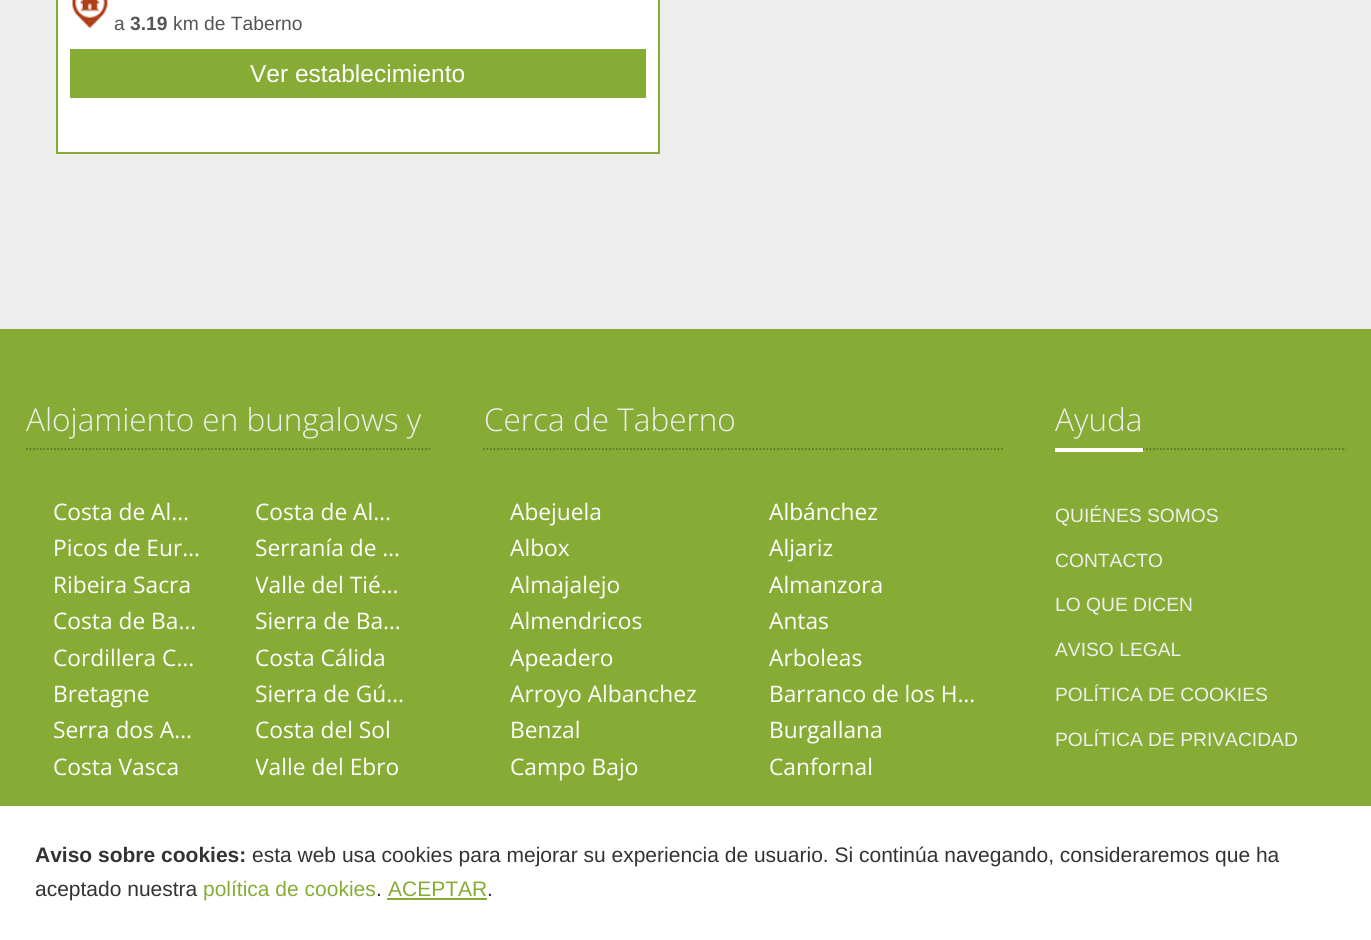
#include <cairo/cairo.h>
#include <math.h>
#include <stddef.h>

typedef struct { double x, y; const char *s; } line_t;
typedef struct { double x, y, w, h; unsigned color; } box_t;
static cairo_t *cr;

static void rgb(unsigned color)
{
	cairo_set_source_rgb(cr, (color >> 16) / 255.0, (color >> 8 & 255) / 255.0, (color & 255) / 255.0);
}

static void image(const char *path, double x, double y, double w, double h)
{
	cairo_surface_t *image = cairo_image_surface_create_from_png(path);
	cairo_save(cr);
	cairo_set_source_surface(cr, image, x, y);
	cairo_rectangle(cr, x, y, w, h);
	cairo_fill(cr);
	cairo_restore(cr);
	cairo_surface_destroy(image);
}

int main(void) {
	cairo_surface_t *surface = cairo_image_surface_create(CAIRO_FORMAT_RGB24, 1371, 940);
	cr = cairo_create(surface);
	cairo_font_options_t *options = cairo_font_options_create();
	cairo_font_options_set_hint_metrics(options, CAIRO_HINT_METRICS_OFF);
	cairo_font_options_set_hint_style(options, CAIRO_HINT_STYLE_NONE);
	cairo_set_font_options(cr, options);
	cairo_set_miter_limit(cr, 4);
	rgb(0xeeeeee);
	cairo_paint(cr);
	rgb(0xffffff);
	cairo_rectangle(cr, 57, -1, 602, 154);
	cairo_fill_preserve(cr);
	rgb(0x87ac35);
	cairo_stroke(cr);
	image("img/1.png", 71, 0, 38, 29);
	cairo_rectangle(cr, 70, 49, 576, 49);
	cairo_fill(cr);
	cairo_rectangle(cr, 0, 329, 1371, 473);
	cairo_fill(cr);
	cairo_new_path(cr);
	cairo_move_to(cr, 26, 449);
	cairo_line_to(cr, 430.5, 449);
	rgb(0x5f7826);
	cairo_set_line_width(cr, 1.8);
	cairo_set_dash(cr, (double[]){1.75, 1.75}, 2, 0);
	cairo_stroke(cr);
	cairo_new_path(cr);
	cairo_move_to(cr, 483, 449);
	cairo_line_to(cr, 1003, 449);
	cairo_stroke(cr);
	cairo_new_path(cr);
	cairo_move_to(cr, 1055, 449);
	cairo_line_to(cr, 1346, 449);
	cairo_stroke(cr);
	{
		static const box_t items[] = {
			{1055, 448, 88, 4, 0xffffff},
			{0, 806, 1371, 134, 0xffffff},
			{0, 802, 1371, 4, 0x87ac33},
			{387, 898, 100, 2, 0x87ac35},
		};
		for (size_t i = 0; i < sizeof items / sizeof *items; i++) {
			rgb(items[i].color);
			cairo_rectangle(cr, items[i].x, items[i].y, items[i].w, items[i].h);
			cairo_fill(cr);
		}
	}
	cairo_select_font_face(cr, "Liberation Sans", CAIRO_FONT_SLANT_NORMAL, CAIRO_FONT_WEIGHT_NORMAL);
	cairo_set_font_size(cr, 19.25);
	rgb(0x555555);
	cairo_move_to(cr, 114, 30);
	cairo_show_text(cr, "a");
	cairo_select_font_face(cr, "Liberation Sans", CAIRO_FONT_SLANT_NORMAL, CAIRO_FONT_WEIGHT_BOLD);
	cairo_move_to(cr, 130, 30);
	cairo_show_text(cr, "3.19");
	cairo_select_font_face(cr, "Liberation Sans", CAIRO_FONT_SLANT_NORMAL, CAIRO_FONT_WEIGHT_NORMAL);
	cairo_move_to(cr, 173, 30);
	cairo_show_text(cr, "km de Taberno");
	cairo_set_font_size(cr, 24.5);
	rgb(0xffffff);
	cairo_move_to(cr, 250, 82);
	cairo_show_text(cr, "Ver establecimiento");
	cairo_select_font_face(cr, "Open Sans Light", CAIRO_FONT_SLANT_NORMAL, CAIRO_FONT_WEIGHT_NORMAL);
	cairo_set_font_size(cr, 31.5);
	rgb(0xeeeeee);
	cairo_move_to(cr, 26, 431);
	cairo_show_text(cr, "Alojamiento en bungalows y");
	cairo_select_font_face(cr, "Open Sans", CAIRO_FONT_SLANT_NORMAL, CAIRO_FONT_WEIGHT_NORMAL);
	cairo_set_font_size(cr, 22.75);
	rgb(0xffffff);
	{
		static const line_t items[] = {
			{53, 520, "Costa de Al…"},
			{255, 520, "Costa de Al…"},
			{53, 556, "Picos de Eur…"},
			{255, 556, "Serranía de …"},
			{53, 593, "Ribeira Sacra"},
		};
		for (size_t i = 0; i < sizeof items / sizeof *items; i++) {
			cairo_move_to(cr, items[i].x, items[i].y);
			cairo_show_text(cr, items[i].s);
		}
	}
	cairo_save(cr);
	cairo_rectangle(cr, 256, 567, 148, 37);
	cairo_clip(cr);
	cairo_move_to(cr, 255, 593);
	cairo_show_text(cr, "Valle del Tié…");
	cairo_restore(cr);
	{
		static const line_t items[] = {
			{53, 629, "Costa de Ba…"},
			{255, 629, "Sierra de Ba…"},
			{53, 666, "Cordillera C…"},
			{255, 666, "Costa Cálida"},
			{53, 702, "Bretagne"},
			{255, 702, "Sierra de Gú…"},
			{53, 738, "Serra dos A…"},
			{255, 738, "Costa del Sol"},
			{53, 775, "Costa Vasca"},
		};
		for (size_t i = 0; i < sizeof items / sizeof *items; i++) {
			cairo_move_to(cr, items[i].x, items[i].y);
			cairo_show_text(cr, items[i].s);
		}
	}
	cairo_save(cr);
	cairo_rectangle(cr, 256, 749, 148, 37);
	cairo_clip(cr);
	cairo_move_to(cr, 255, 775);
	cairo_show_text(cr, "Valle del Ebro");
	cairo_restore(cr);
	cairo_select_font_face(cr, "Open Sans Light", CAIRO_FONT_SLANT_NORMAL, CAIRO_FONT_WEIGHT_NORMAL);
	cairo_set_font_size(cr, 31.5);
	rgb(0xeeeeee);
	cairo_move_to(cr, 484, 431);
	cairo_show_text(cr, "Cerca de Taberno");
	cairo_select_font_face(cr, "Open Sans", CAIRO_FONT_SLANT_NORMAL, CAIRO_FONT_WEIGHT_NORMAL);
	cairo_set_font_size(cr, 22.75);
	rgb(0xffffff);
	{
		static const line_t items[] = {
			{510, 520, "Abejuela"},
			{769, 520, "Albánchez"},
			{510, 556, "Albox"},
			{769, 556, "Aljariz"},
			{510, 593, "Almajalejo"},
			{769, 593, "Almanzora"},
			{510, 629, "Almendricos"},
			{769, 629, "Antas"},
			{510, 666, "Apeadero"},
			{769, 666, "Arboleas"},
			{510, 702, "Arroyo Albanchez"},
			{769, 702, "Barranco de los H…"},
			{510, 738, "Benzal"},
			{769, 738, "Burgallana"},
			{510, 775, "Campo Bajo"},
			{769, 775, "Canfornal"},
		};
		for (size_t i = 0; i < sizeof items / sizeof *items; i++) {
			cairo_move_to(cr, items[i].x, items[i].y);
			cairo_show_text(cr, items[i].s);
		}
	}
	cairo_select_font_face(cr, "Open Sans Light", CAIRO_FONT_SLANT_NORMAL, CAIRO_FONT_WEIGHT_NORMAL);
	cairo_set_font_size(cr, 31.5);
	rgb(0xeeeeee);
	cairo_move_to(cr, 1055, 431);
	cairo_show_text(cr, "Ayuda");
	cairo_select_font_face(cr, "Liberation Sans", CAIRO_FONT_SLANT_NORMAL, CAIRO_FONT_WEIGHT_NORMAL);
	cairo_set_font_size(cr, 19.25);
	{
		static const line_t items[] = {
			{1055, 522, "QUIÉNES SOMOS"},
			{1055, 567, "CONTACTO"},
			{1055, 611, "LO QUE DICEN"},
			{1055, 656, "AVISO LEGAL"},
			{1055, 701, "POLÍTICA DE COOKIES"},
			{1055, 746, "POLÍTICA DE PRIVACIDAD"},
		};
		for (size_t i = 0; i < sizeof items / sizeof *items; i++) {
			cairo_move_to(cr, items[i].x, items[i].y);
			cairo_show_text(cr, items[i].s);
		}
	}
	cairo_select_font_face(cr, "Liberation Sans", CAIRO_FONT_SLANT_NORMAL, CAIRO_FONT_WEIGHT_BOLD);
	cairo_set_font_size(cr, 21);
	rgb(0x333333);
	cairo_move_to(cr, 35, 862);
	cairo_show_text(cr, "Aviso sobre cookies:");
	cairo_select_font_face(cr, "Liberation Sans", CAIRO_FONT_SLANT_NORMAL, CAIRO_FONT_WEIGHT_NORMAL);
	cairo_move_to(cr, 252, 862);
	cairo_show_text(cr, "esta web usa cookies para mejorar su experiencia de usuario. Si continúa navegando, consideraremos que ha");
	cairo_move_to(cr, 35, 896);
	cairo_show_text(cr, "aceptado nuestra");
	rgb(0x87ac35);
	cairo_move_to(cr, 203, 896);
	cairo_show_text(cr, "política de cookies");
	rgb(0x333333);
	cairo_move_to(cr, 376, 896);
	cairo_show_text(cr, ".");
	rgb(0x87ac35);
	cairo_move_to(cr, 388, 896);
	cairo_show_text(cr, "ACEPTAR");
	rgb(0x333333);
	cairo_move_to(cr, 487, 896);
	cairo_show_text(cr, ".");
	cairo_surface_write_to_png(surface, "page.png");
	cairo_font_options_destroy(options);
	cairo_destroy(cr);
	cairo_surface_destroy(surface);
	return 0;
}
